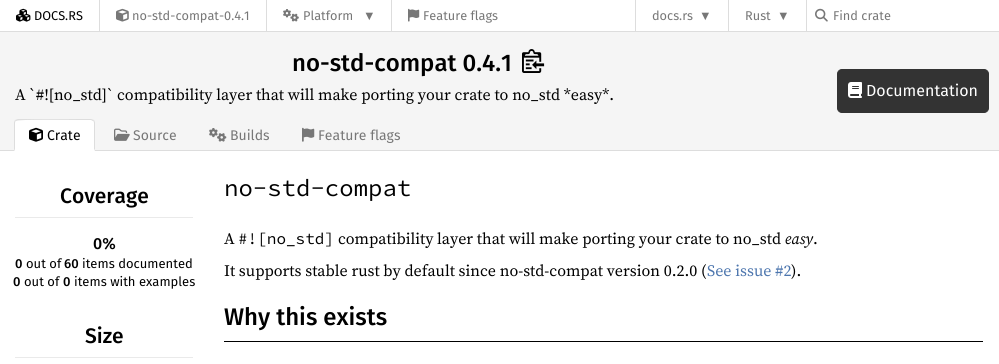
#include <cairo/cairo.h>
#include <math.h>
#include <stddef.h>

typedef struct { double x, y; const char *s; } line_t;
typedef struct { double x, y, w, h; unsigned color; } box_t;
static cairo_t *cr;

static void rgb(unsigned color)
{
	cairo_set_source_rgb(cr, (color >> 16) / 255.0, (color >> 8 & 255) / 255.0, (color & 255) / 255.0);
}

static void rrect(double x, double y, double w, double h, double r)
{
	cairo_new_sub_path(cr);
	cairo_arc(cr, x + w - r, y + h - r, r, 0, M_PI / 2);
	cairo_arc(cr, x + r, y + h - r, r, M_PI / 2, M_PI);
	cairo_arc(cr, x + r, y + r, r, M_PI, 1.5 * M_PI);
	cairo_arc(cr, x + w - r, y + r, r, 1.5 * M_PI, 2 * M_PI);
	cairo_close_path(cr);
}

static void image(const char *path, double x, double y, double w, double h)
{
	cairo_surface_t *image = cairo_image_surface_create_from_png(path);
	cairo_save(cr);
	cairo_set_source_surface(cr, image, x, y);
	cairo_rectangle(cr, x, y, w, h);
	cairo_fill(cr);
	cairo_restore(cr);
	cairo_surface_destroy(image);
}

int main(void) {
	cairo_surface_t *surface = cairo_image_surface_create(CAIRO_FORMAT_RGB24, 999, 364);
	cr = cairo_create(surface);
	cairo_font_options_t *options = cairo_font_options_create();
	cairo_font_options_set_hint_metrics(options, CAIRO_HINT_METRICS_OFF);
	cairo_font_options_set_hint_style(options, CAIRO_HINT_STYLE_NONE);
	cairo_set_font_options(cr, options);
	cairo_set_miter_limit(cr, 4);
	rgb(0xffffff);
	cairo_paint(cr);
	rgb(0xdddddd);
	cairo_rectangle(cr, 0, 31, 999, 1);
	cairo_fill(cr);
	image("img/1.png", 16, 8, 15, 14);
	cairo_rectangle(cr, 99, 0, 1, 31);
	cairo_fill(cr);
	image("img/2.png", 116, 8, 13, 14);
	cairo_rectangle(cr, 266, 0, 1, 31);
	cairo_fill(cr);
	image("img/3.png", 283, 9, 16, 13);
	cairo_rectangle(cr, 391, 0, 1, 31);
	cairo_fill(cr);
	image("img/4.png", 408, 8, 12, 14);
	{
		static const box_t items[] = {
			{635, 0, 1, 31, 0xdddddd},
			{728, 0, 1, 31, 0xdddddd},
			{806, 0, 1, 31, 0xdddddd},
		};
		for (size_t i = 0; i < sizeof items / sizeof *items; i++) {
			rgb(items[i].color);
			cairo_rectangle(cr, items[i].x, items[i].y, items[i].w, items[i].h);
			cairo_fill(cr);
		}
	}
	image("img/5.png", 815, 8, 13, 14);
	rgb(0xf5f5f5);
	cairo_rectangle(cr, 0, 32, 999, 118);
	cairo_fill(cr);
	rgb(0xdddddd);
	cairo_rectangle(cr, 0, 150, 999, 1);
	cairo_fill(cr);
	image("img/6.png", 522, 49, 23, 24);
	rgb(0xffffff);
	cairo_new_path(cr);
	cairo_move_to(cr, 18, 120);
	cairo_line_to(cr, 91, 120);
	cairo_curve_to(cr, 92.5, 120, 94, 121.5, 94, 123);
	cairo_line_to(cr, 94, 149);
	cairo_line_to(cr, 15, 149);
	cairo_line_to(cr, 15, 123);
	cairo_curve_to(cr, 15, 121.5, 16.5, 120, 18, 120);
	cairo_close_path(cr);
	cairo_fill(cr);
	rgb(0xdddddd);
	cairo_new_path(cr);
	cairo_move_to(cr, 18, 119);
	cairo_line_to(cr, 15, 120);
	cairo_line_to(cr, 16, 121);
	cairo_curve_to(cr, 18, 119, 72, 120, 79, 120);
	cairo_line_to(cr, 91, 120);
	cairo_line_to(cr, 93, 121);
	cairo_line_to(cr, 94, 120);
	cairo_line_to(cr, 91, 119);
	cairo_close_path(cr);
	cairo_fill(cr);
	cairo_new_path(cr);
	cairo_move_to(cr, 95, 151);
	cairo_line_to(cr, 95, 123);
	cairo_curve_to(cr, 95, 122, 94.5, 121, 94, 120);
	cairo_line_to(cr, 93, 121);
	cairo_curve_to(cr, 94, 121, 94, 122, 94, 123);
	cairo_line_to(cr, 94, 149);
	cairo_close_path(cr);
	cairo_fill(cr);
	rgb(0xffffff);
	cairo_new_path(cr);
	cairo_move_to(cr, 95, 151);
	cairo_line_to(cr, 94, 149);
	cairo_line_to(cr, 15, 149);
	cairo_line_to(cr, 14, 151);
	cairo_close_path(cr);
	cairo_fill(cr);
	rgb(0xdddddd);
	cairo_new_path(cr);
	cairo_move_to(cr, 14, 151);
	cairo_line_to(cr, 15, 149);
	cairo_line_to(cr, 15, 123);
	cairo_curve_to(cr, 15, 122, 15, 121, 16, 121);
	cairo_line_to(cr, 15, 120);
	cairo_curve_to(cr, 14.5, 121, 14, 122, 14, 123);
	cairo_close_path(cr);
	cairo_fill(cr);
	image("img/7.png", 29, 127, 14, 15);
	image("img/8.png", 114, 128, 16, 13);
	image("img/9.png", 209, 128, 18, 14);
	image("img/10.png", 302, 127, 13, 15);
	rgb(0x333333);
	rrect(837.5, 69.5, 151, 43, 4.5);
	cairo_fill_preserve(cr);
	cairo_set_line_width(cr, 1);
	cairo_stroke(cr);
	image("img/11.png", 848, 82, 14, 16);
	{
		static const box_t items[] = {
			{15, 217, 178, 1, 0xeaeaea},
			{15, 357, 178, 1, 0xeaeaea},
			{224, 341, 759, 1, 0x000000},
		};
		for (size_t i = 0; i < sizeof items / sizeof *items; i++) {
			rgb(items[i].color);
			cairo_rectangle(cr, items[i].x, items[i].y, items[i].w, items[i].h);
			cairo_fill(cr);
		}
	}
	cairo_select_font_face(cr, "Fira Sans", CAIRO_FONT_SLANT_NORMAL, CAIRO_FONT_WEIGHT_NORMAL);
	cairo_set_font_size(cr, 12.75);
	cairo_move_to(cr, 34, 20);
	cairo_show_text(cr, "DOCS.RS");
	rgb(0x777777);
	cairo_move_to(cr, 132, 20);
	cairo_show_text(cr, "no-std-compat-0.4.1");
	cairo_move_to(cr, 303, 20);
	cairo_show_text(cr, "Platform");
	cairo_select_font_face(cr, "Liberation Sans", CAIRO_FONT_SLANT_NORMAL, CAIRO_FONT_WEIGHT_NORMAL);
	cairo_move_to(cr, 363, 20);
	cairo_show_text(cr, "▼");
	cairo_select_font_face(cr, "Fira Sans", CAIRO_FONT_SLANT_NORMAL, CAIRO_FONT_WEIGHT_NORMAL);
	cairo_move_to(cr, 423, 20);
	cairo_show_text(cr, "Feature flags");
	cairo_move_to(cr, 652, 20);
	cairo_show_text(cr, "docs.rs");
	cairo_select_font_face(cr, "Liberation Sans", CAIRO_FONT_SLANT_NORMAL, CAIRO_FONT_WEIGHT_NORMAL);
	cairo_move_to(cr, 699, 20);
	cairo_show_text(cr, "▼");
	cairo_select_font_face(cr, "Fira Sans", CAIRO_FONT_SLANT_NORMAL, CAIRO_FONT_WEIGHT_NORMAL);
	cairo_move_to(cr, 745, 20);
	cairo_show_text(cr, "Rust");
	cairo_select_font_face(cr, "Liberation Sans", CAIRO_FONT_SLANT_NORMAL, CAIRO_FONT_WEIGHT_NORMAL);
	cairo_move_to(cr, 777, 20);
	cairo_show_text(cr, "▼");
	cairo_select_font_face(cr, "Fira Sans", CAIRO_FONT_SLANT_NORMAL, CAIRO_FONT_WEIGHT_NORMAL);
	cairo_move_to(cr, 833, 20);
	cairo_show_text(cr, "Find crate");
	cairo_select_font_face(cr, "Fira Sans Medium", CAIRO_FONT_SLANT_NORMAL, CAIRO_FONT_WEIGHT_NORMAL);
	cairo_set_font_size(cr, 24);
	rgb(0x000000);
	cairo_move_to(cr, 292, 71);
	cairo_show_text(cr, "no-std-compat 0.4.1");
	cairo_select_font_face(cr, "Source Serif 4", CAIRO_FONT_SLANT_NORMAL, CAIRO_FONT_WEIGHT_NORMAL);
	cairo_set_font_size(cr, 16);
	cairo_move_to(cr, 15, 100);
	cairo_show_text(cr, "A `#![no_std]` compatibility layer that will make porting your crate to no_std *easy*.");
	cairo_select_font_face(cr, "Fira Sans", CAIRO_FONT_SLANT_NORMAL, CAIRO_FONT_WEIGHT_NORMAL);
	cairo_set_font_size(cr, 14);
	cairo_move_to(cr, 47, 140);
	cairo_show_text(cr, "Crate");
	rgb(0x777777);
	{
		static const line_t items[] = {
			{133, 140, "Source"},
			{230, 140, "Builds"},
			{318, 140, "Feature flags"},
		};
		for (size_t i = 0; i < sizeof items / sizeof *items; i++) {
			cairo_move_to(cr, items[i].x, items[i].y);
			cairo_show_text(cr, items[i].s);
		}
	}
	cairo_set_font_size(cr, 16);
	rgb(0xffffff);
	cairo_move_to(cr, 866, 96);
	cairo_show_text(cr, "Documentation");
	cairo_select_font_face(cr, "Fira Sans Medium", CAIRO_FONT_SLANT_NORMAL, CAIRO_FONT_WEIGHT_NORMAL);
	cairo_set_font_size(cr, 21);
	rgb(0x000000);
	cairo_move_to(cr, 60, 203);
	cairo_show_text(cr, "Coverage");
	cairo_set_font_size(cr, 16);
	cairo_move_to(cr, 93, 249);
	cairo_show_text(cr, "0%");
	cairo_set_font_size(cr, 13);
	cairo_move_to(cr, 15, 268);
	cairo_show_text(cr, "0");
	cairo_select_font_face(cr, "Fira Sans", CAIRO_FONT_SLANT_NORMAL, CAIRO_FONT_WEIGHT_NORMAL);
	cairo_move_to(cr, 26, 268);
	cairo_show_text(cr, "out of");
	cairo_select_font_face(cr, "Fira Sans Medium", CAIRO_FONT_SLANT_NORMAL, CAIRO_FONT_WEIGHT_NORMAL);
	cairo_move_to(cr, 64, 268);
	cairo_show_text(cr, "60");
	cairo_select_font_face(cr, "Fira Sans", CAIRO_FONT_SLANT_NORMAL, CAIRO_FONT_WEIGHT_NORMAL);
	cairo_move_to(cr, 82, 268);
	cairo_show_text(cr, "items documented");
	cairo_select_font_face(cr, "Fira Sans Medium", CAIRO_FONT_SLANT_NORMAL, CAIRO_FONT_WEIGHT_NORMAL);
	cairo_move_to(cr, 13, 286);
	cairo_show_text(cr, "0");
	cairo_select_font_face(cr, "Fira Sans", CAIRO_FONT_SLANT_NORMAL, CAIRO_FONT_WEIGHT_NORMAL);
	cairo_move_to(cr, 24, 286);
	cairo_show_text(cr, "out of");
	cairo_select_font_face(cr, "Fira Sans Medium", CAIRO_FONT_SLANT_NORMAL, CAIRO_FONT_WEIGHT_NORMAL);
	cairo_move_to(cr, 63, 286);
	cairo_show_text(cr, "0");
	cairo_select_font_face(cr, "Fira Sans", CAIRO_FONT_SLANT_NORMAL, CAIRO_FONT_WEIGHT_NORMAL);
	cairo_move_to(cr, 74, 286);
	cairo_show_text(cr, "items with examples");
	cairo_select_font_face(cr, "Fira Sans Medium", CAIRO_FONT_SLANT_NORMAL, CAIRO_FONT_WEIGHT_NORMAL);
	cairo_set_font_size(cr, 21);
	cairo_move_to(cr, 85, 343);
	cairo_show_text(cr, "Size");
	cairo_select_font_face(cr, "Source Code Pro", CAIRO_FONT_SLANT_NORMAL, CAIRO_FONT_WEIGHT_NORMAL);
	cairo_set_font_size(cr, 24);
	cairo_move_to(cr, 224, 196);
	cairo_show_text(cr, "no-std-compat");
	cairo_select_font_face(cr, "Source Serif 4", CAIRO_FONT_SLANT_NORMAL, CAIRO_FONT_WEIGHT_NORMAL);
	cairo_set_font_size(cr, 16);
	cairo_move_to(cr, 224, 244);
	cairo_show_text(cr, "A");
	cairo_select_font_face(cr, "Source Code Pro", CAIRO_FONT_SLANT_NORMAL, CAIRO_FONT_WEIGHT_NORMAL);
	cairo_move_to(cr, 238, 244);
	cairo_show_text(cr, "#![no_std]");
	cairo_select_font_face(cr, "Source Serif 4", CAIRO_FONT_SLANT_NORMAL, CAIRO_FONT_WEIGHT_NORMAL);
	cairo_move_to(cr, 338, 244);
	cairo_show_text(cr, "compatibility layer that will make porting your crate to no_std");
	cairo_select_font_face(cr, "Source Serif 4", CAIRO_FONT_SLANT_ITALIC, CAIRO_FONT_WEIGHT_NORMAL);
	cairo_move_to(cr, 785, 244);
	cairo_show_text(cr, "easy");
	cairo_select_font_face(cr, "Source Serif 4", CAIRO_FONT_SLANT_NORMAL, CAIRO_FONT_WEIGHT_NORMAL);
	cairo_move_to(cr, 813, 244);
	cairo_show_text(cr, ".");
	cairo_move_to(cr, 224, 276);
	cairo_show_text(cr, "It supports stable rust by default since no-std-compat version 0.2.0 (");
	rgb(0x4d76ae);
	cairo_move_to(cr, 707, 276);
	cairo_show_text(cr, "See issue #2");
	rgb(0x000000);
	cairo_move_to(cr, 791, 276);
	cairo_show_text(cr, ").");
	cairo_select_font_face(cr, "Fira Sans Medium", CAIRO_FONT_SLANT_NORMAL, CAIRO_FONT_WEIGHT_NORMAL);
	cairo_set_font_size(cr, 24);
	cairo_move_to(cr, 224, 325);
	cairo_show_text(cr, "Why this exists");
	cairo_surface_write_to_png(surface, "page.png");
	cairo_font_options_destroy(options);
	cairo_destroy(cr);
	cairo_surface_destroy(surface);
	return 0;
}
